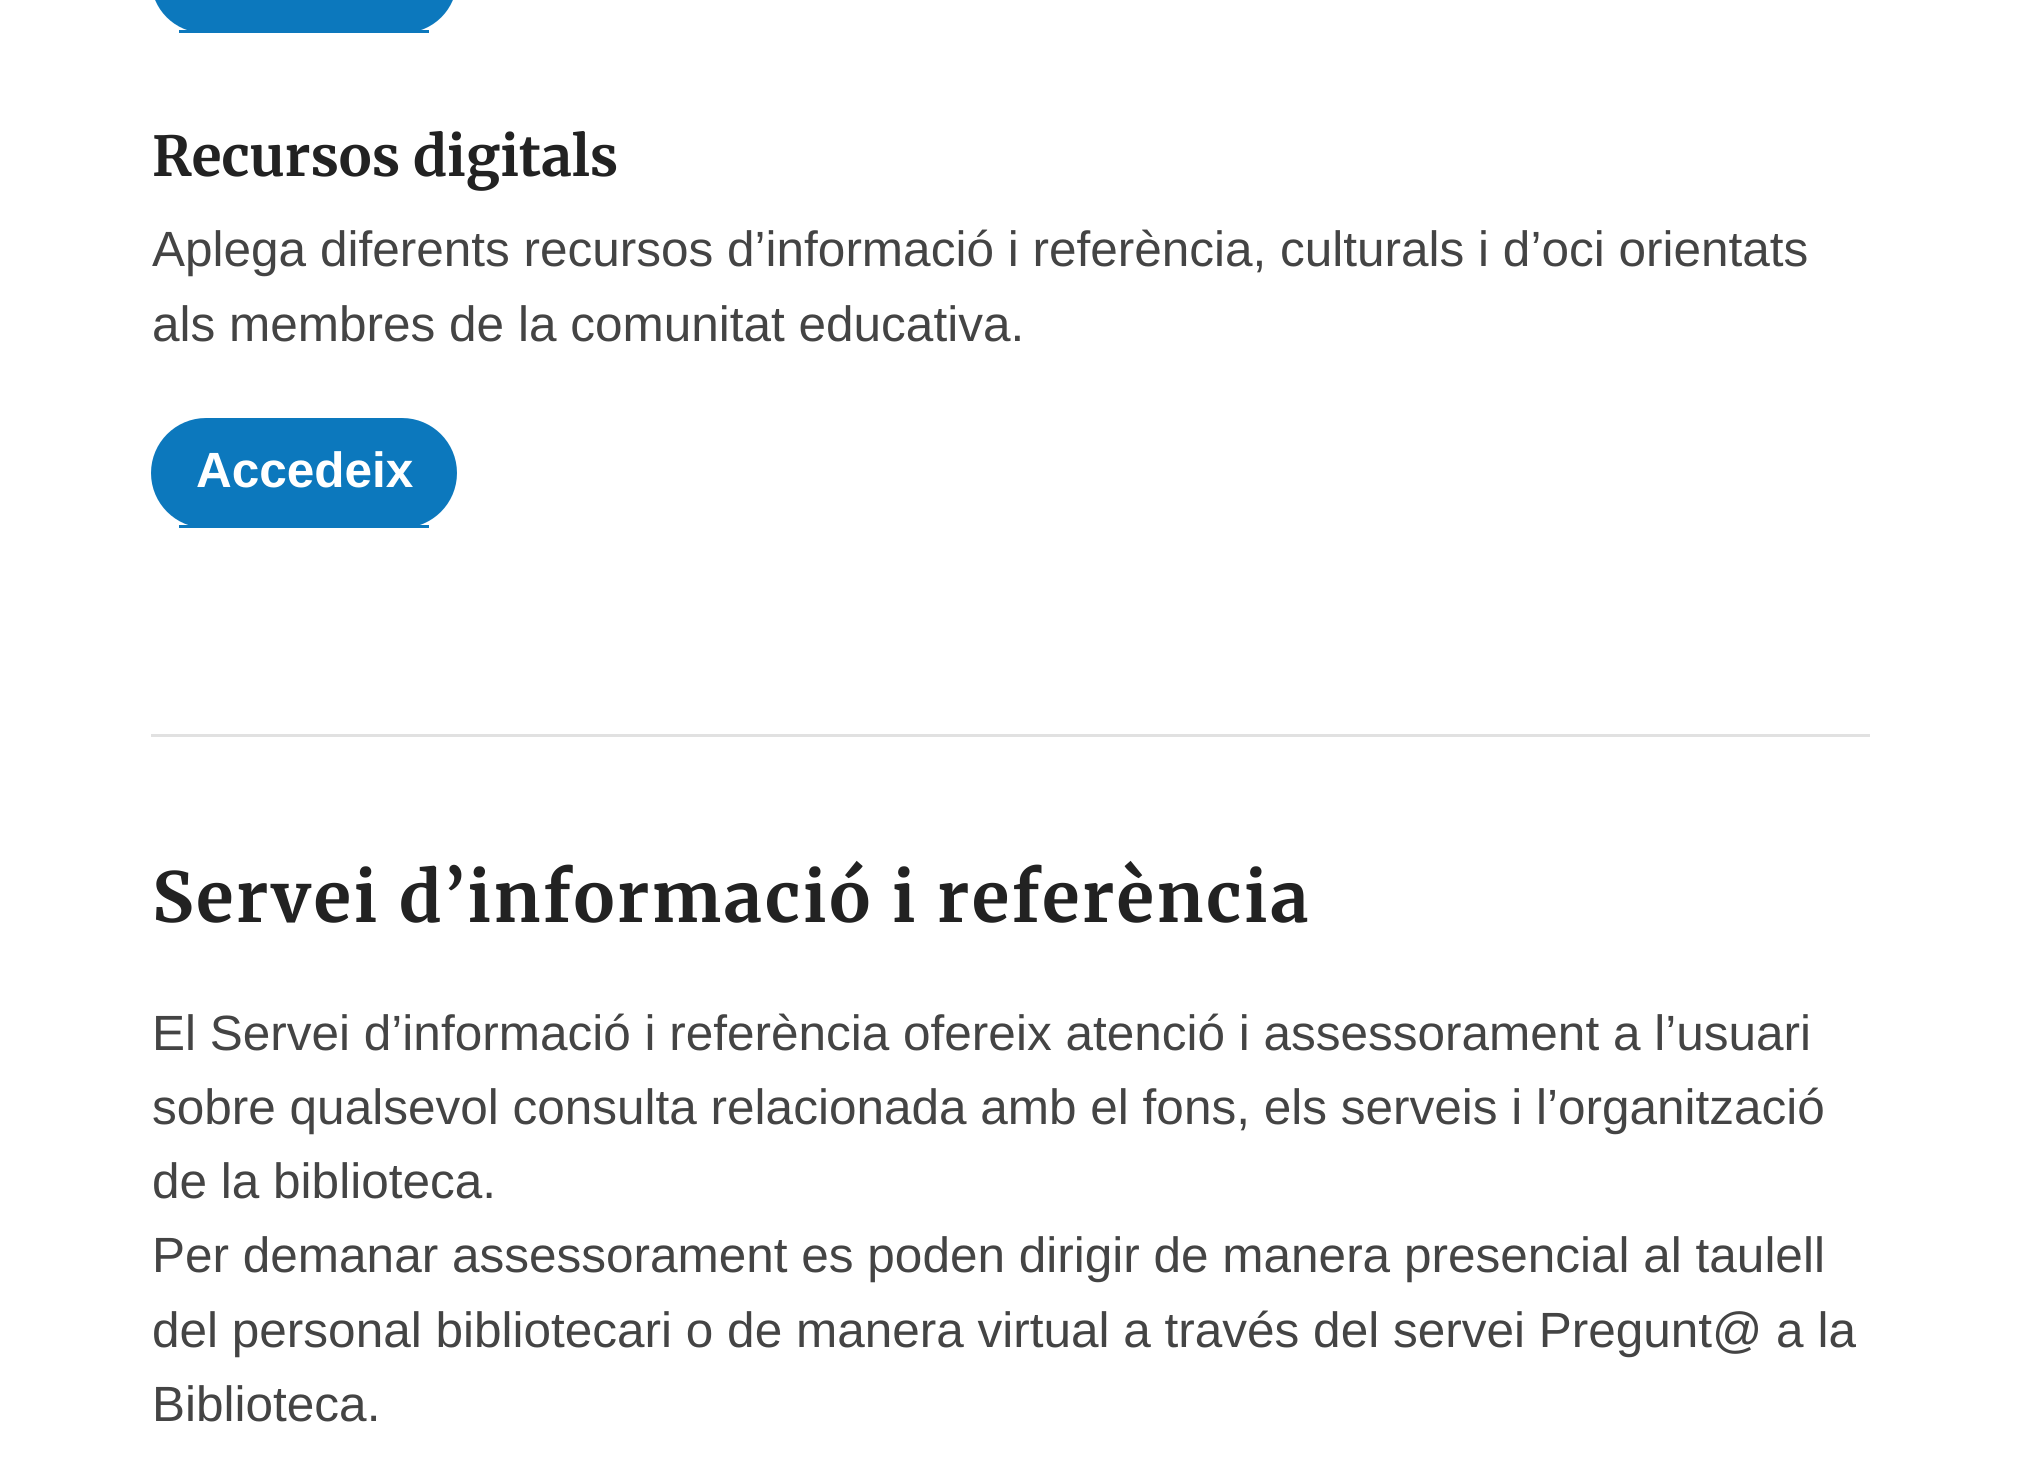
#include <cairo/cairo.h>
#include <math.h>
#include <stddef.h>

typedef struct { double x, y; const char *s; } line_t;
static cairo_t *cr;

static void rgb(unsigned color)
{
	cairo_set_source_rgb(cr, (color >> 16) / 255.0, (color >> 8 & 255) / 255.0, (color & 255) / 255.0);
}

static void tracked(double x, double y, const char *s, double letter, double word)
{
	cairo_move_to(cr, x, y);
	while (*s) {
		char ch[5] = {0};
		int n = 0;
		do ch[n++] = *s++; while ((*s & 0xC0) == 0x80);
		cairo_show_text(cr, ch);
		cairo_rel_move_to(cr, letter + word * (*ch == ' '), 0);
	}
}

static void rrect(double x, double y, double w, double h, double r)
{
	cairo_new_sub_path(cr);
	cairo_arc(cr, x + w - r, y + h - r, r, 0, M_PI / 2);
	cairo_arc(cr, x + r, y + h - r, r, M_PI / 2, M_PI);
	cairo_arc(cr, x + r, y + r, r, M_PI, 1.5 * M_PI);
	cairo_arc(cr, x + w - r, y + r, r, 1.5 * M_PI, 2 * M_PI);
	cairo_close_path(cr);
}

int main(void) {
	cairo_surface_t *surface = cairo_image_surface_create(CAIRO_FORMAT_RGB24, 2019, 1473);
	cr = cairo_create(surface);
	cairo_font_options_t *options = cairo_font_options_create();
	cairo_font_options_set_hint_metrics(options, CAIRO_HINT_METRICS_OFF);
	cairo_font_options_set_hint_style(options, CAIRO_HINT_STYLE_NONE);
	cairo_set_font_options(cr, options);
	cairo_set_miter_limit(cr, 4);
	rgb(0xffffff);
	cairo_paint(cr);
	rgb(0x0c78bd);
	rrect(151, -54, 306, 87, 53.5);
	cairo_fill(cr);
	cairo_rectangle(cr, 179, 30, 250, 3);
	cairo_fill(cr);
	rrect(151, 418, 306, 110, 55);
	cairo_fill(cr);
	cairo_rectangle(cr, 179, 525, 250, 3);
	cairo_fill(cr);
	rgb(0xe1e1e1);
	cairo_rectangle(cr, 151, 734, 1719, 3);
	cairo_fill(cr);
	cairo_select_font_face(cr, "Merriweather", CAIRO_FONT_SLANT_NORMAL, CAIRO_FONT_WEIGHT_BOLD);
	cairo_set_font_size(cr, 55);
	rgb(0x222222);
	cairo_move_to(cr, 152, 176);
	cairo_show_text(cr, "Recursos digitals");
	cairo_select_font_face(cr, "Liberation Sans", CAIRO_FONT_SLANT_NORMAL, CAIRO_FONT_WEIGHT_NORMAL);
	cairo_set_font_size(cr, 49.5);
	rgb(0x444444);
	cairo_move_to(cr, 152, 266);
	cairo_show_text(cr, "Aplega diferents recursos d’informació i referència, culturals i d’oci orientats");
	cairo_move_to(cr, 152, 341);
	cairo_show_text(cr, "als membres de la comunitat educativa.");
	cairo_select_font_face(cr, "Liberation Sans", CAIRO_FONT_SLANT_NORMAL, CAIRO_FONT_WEIGHT_BOLD);
	rgb(0xffffff);
	cairo_move_to(cr, 196, 487);
	cairo_show_text(cr, "Accedeix");
	cairo_select_font_face(cr, "Merriweather", CAIRO_FONT_SLANT_NORMAL, CAIRO_FONT_WEIGHT_BOLD);
	cairo_set_font_size(cr, 68.75);
	rgb(0x222222);
	tracked(152, 922, "Servei d’informació i referència", 2.75, 0);
	cairo_select_font_face(cr, "Liberation Sans", CAIRO_FONT_SLANT_NORMAL, CAIRO_FONT_WEIGHT_NORMAL);
	cairo_set_font_size(cr, 49.5);
	rgb(0x444444);
	{
		static const line_t items[] = {
			{152, 1050, "El Servei d’informació i referència ofereix atenció i assessorament a l’usuari"},
			{152, 1124, "sobre qualsevol consulta relacionada amb el fons, els serveis i l’organització"},
			{152, 1198, "de la biblioteca."},
			{152, 1272, "Per demanar assessorament es poden dirigir de manera presencial al taulell"},
			{152, 1347, "del personal bibliotecari o de manera virtual a través del servei Pregunt@ a la"},
			{152, 1421, "Biblioteca."},
		};
		for (size_t i = 0; i < sizeof items / sizeof *items; i++) {
			cairo_move_to(cr, items[i].x, items[i].y);
			cairo_show_text(cr, items[i].s);
		}
	}
	cairo_surface_write_to_png(surface, "page.png");
	cairo_font_options_destroy(options);
	cairo_destroy(cr);
	cairo_surface_destroy(surface);
	return 0;
}
